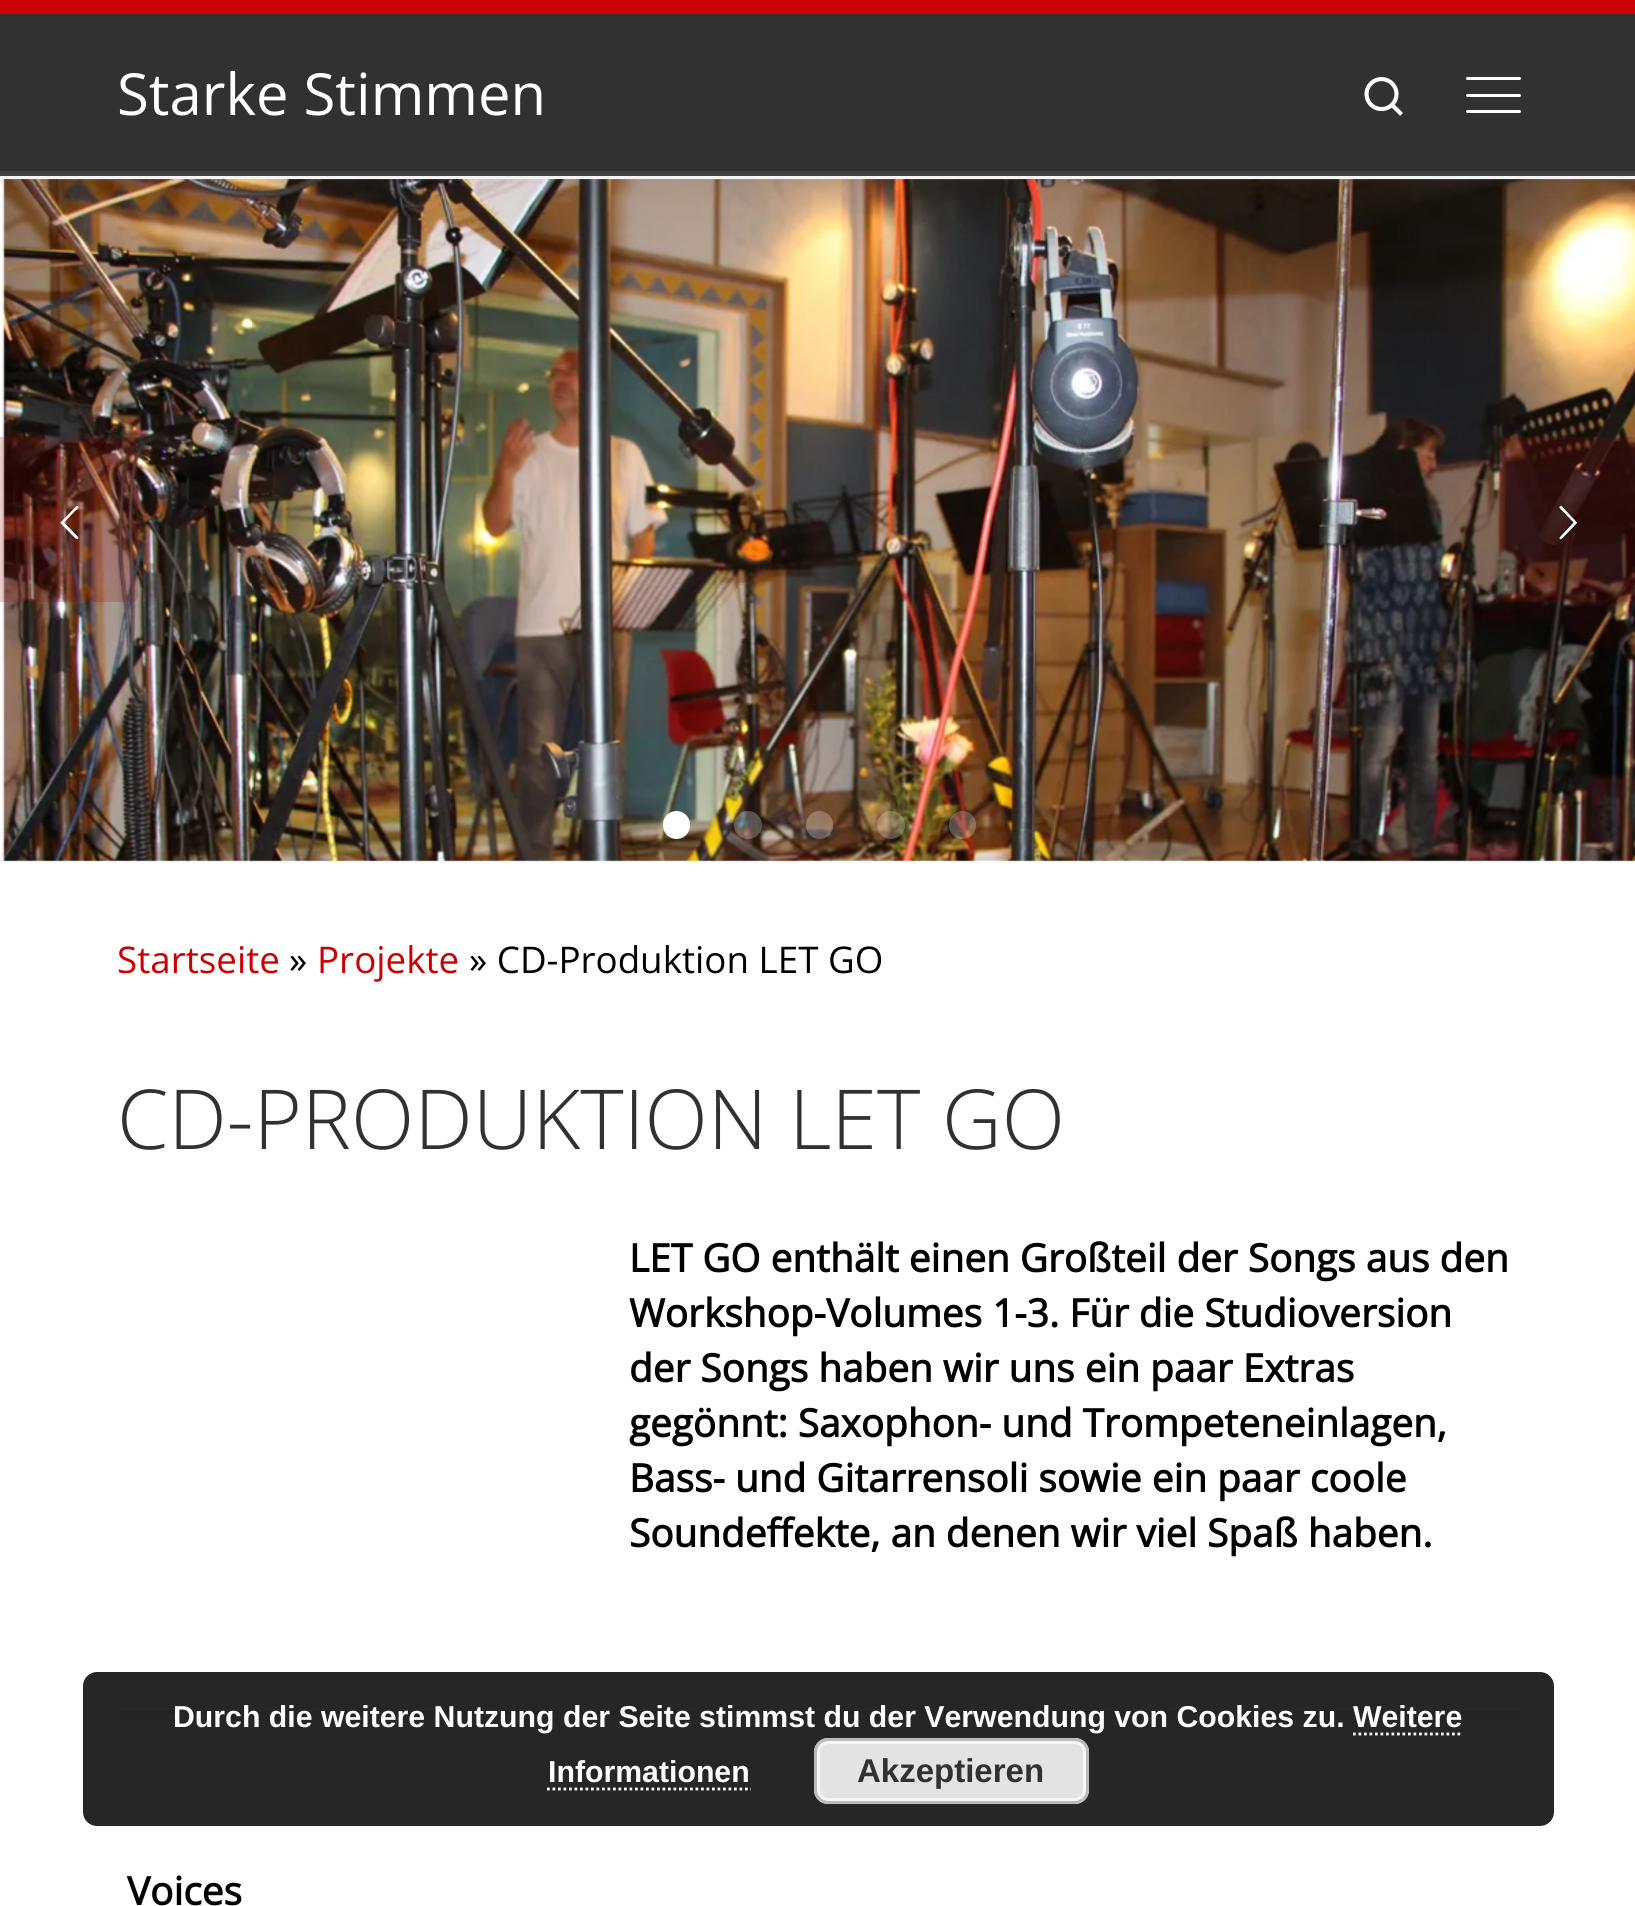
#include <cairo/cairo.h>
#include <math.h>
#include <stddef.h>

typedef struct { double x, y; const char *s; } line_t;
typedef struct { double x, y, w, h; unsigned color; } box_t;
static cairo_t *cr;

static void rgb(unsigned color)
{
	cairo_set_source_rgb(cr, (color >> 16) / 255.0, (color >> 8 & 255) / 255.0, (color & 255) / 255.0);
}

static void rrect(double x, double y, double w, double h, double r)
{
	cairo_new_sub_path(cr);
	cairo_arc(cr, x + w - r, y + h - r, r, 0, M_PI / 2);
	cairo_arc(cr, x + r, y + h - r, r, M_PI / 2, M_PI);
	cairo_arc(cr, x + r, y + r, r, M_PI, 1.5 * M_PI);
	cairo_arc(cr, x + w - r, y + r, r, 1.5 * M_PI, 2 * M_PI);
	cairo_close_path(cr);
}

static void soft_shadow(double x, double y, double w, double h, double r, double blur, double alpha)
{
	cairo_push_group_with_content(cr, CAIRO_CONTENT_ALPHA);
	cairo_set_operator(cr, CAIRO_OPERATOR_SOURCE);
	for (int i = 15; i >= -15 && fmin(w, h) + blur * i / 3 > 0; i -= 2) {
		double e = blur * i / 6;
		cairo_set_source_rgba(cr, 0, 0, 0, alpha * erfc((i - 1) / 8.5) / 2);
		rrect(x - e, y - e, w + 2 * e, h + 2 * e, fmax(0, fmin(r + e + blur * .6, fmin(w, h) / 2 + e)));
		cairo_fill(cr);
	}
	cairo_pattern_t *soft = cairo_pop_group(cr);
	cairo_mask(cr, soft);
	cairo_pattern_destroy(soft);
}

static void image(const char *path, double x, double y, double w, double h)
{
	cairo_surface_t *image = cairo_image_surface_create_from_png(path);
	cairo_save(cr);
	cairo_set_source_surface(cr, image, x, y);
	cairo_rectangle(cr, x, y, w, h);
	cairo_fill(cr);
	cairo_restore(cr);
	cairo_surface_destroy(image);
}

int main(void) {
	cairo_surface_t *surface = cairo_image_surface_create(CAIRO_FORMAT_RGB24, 1635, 1906);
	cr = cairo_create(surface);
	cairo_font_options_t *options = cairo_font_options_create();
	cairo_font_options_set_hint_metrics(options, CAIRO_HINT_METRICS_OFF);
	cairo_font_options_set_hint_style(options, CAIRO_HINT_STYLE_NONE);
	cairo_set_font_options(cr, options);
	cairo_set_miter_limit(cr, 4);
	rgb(0xffffff);
	cairo_paint(cr);
	image("img/2.png", 1, 179, 1634, 683);
	rgb(0x666666);
	soft_shadow(0, 6, 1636, 176, 0, 3, 0.08);
	{
		static const box_t items[] = {
			{0, 14, 1635, 157, 0x313131},
			{0, 0, 1635, 14, 0xcc0000},
			{0, 174, 1635, 2, 0x444444},
		};
		for (size_t i = 0; i < sizeof items / sizeof *items; i++) {
			rgb(items[i].color);
			cairo_rectangle(cr, items[i].x, items[i].y, items[i].w, items[i].h);
			cairo_fill(cr);
		}
	}
	image("img/1.png", 1364, 77, 39, 39);
	rgb(0xffffff);
	rrect(1466, 77, 55, 3, 1.5);
	cairo_fill(cr);
	rrect(1466, 94, 55, 3, 1.5);
	cairo_fill(cr);
	rrect(1466, 110, 55, 3, 1.5);
	cairo_fill(cr);
	rgb(0x404040);
	cairo_rectangle(cr, 0, 171, 1635, 3);
	cairo_fill(cr);
	rgb(0xffffff);
	rrect(663, 811, 27, 28, 13.5);
	cairo_fill(cr);
	cairo_set_source_rgba(cr, 1, 1, 1, 0.25);
	cairo_arc(cr, 748, 825, 14, 0, 2 * M_PI);
	cairo_fill(cr);
	rrect(806, 811, 27, 28, 13.5);
	cairo_fill(cr);
	cairo_arc(cr, 891, 825, 14, 0, 2 * M_PI);
	cairo_fill(cr);
	rrect(949, 811, 27, 28, 13.5);
	cairo_fill(cr);
	cairo_set_source_rgba(cr, 0.561, 0, 0, 0.2);
	cairo_new_path(cr);
	cairo_move_to(cr, 0, 437);
	cairo_line_to(cr, 132, 437);
	cairo_curve_to(cr, 135.5, 437, 138, 439.5, 138, 443);
	cairo_line_to(cr, 138, 596);
	cairo_curve_to(cr, 138, 599.5, 135.5, 602, 132, 602);
	cairo_line_to(cr, 0, 602);
	cairo_close_path(cr);
	cairo_fill(cr);
	rgb(0xffffff);
	cairo_new_path(cr);
	cairo_move_to(cr, 78, 537);
	cairo_line_to(cr, 78.5, 538);
	cairo_curve_to(cr, 77.5, 541.5, 74, 536.5, 73.5, 536.5);
	cairo_line_to(cr, 60.5, 523);
	cairo_line_to(cr, 60.5, 522.5);
	cairo_line_to(cr, 76.5, 506);
	cairo_line_to(cr, 77.5, 506);
	cairo_curve_to(cr, 80.5, 507, 76, 510, 75.5, 510.5);
	cairo_line_to(cr, 64, 522.5);
	cairo_close_path(cr);
	cairo_fill(cr);
	cairo_set_source_rgba(cr, 0.561, 0, 0, 0.2);
	cairo_new_path(cr);
	cairo_move_to(cr, 1505, 437);
	cairo_line_to(cr, 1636, 437);
	cairo_line_to(cr, 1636, 602);
	cairo_line_to(cr, 1505, 602);
	cairo_curve_to(cr, 1501.5, 602, 1499, 599.5, 1499, 596);
	cairo_line_to(cr, 1499, 443);
	cairo_curve_to(cr, 1499, 439.5, 1501.5, 437, 1505, 437);
	cairo_close_path(cr);
	cairo_fill(cr);
	rgb(0xffffff);
	cairo_new_path(cr);
	cairo_move_to(cr, 1560, 537);
	cairo_line_to(cr, 1573.5, 522.5);
	cairo_line_to(cr, 1562, 510.5);
	cairo_curve_to(cr, 1561.5, 510, 1557.5, 507, 1560.5, 506);
	cairo_line_to(cr, 1561.5, 506);
	cairo_line_to(cr, 1577, 522.5);
	cairo_line_to(cr, 1577, 523);
	cairo_line_to(cr, 1564, 536.5);
	cairo_curve_to(cr, 1564, 536.5, 1560, 541.5, 1559.5, 538);
	cairo_close_path(cr);
	cairo_fill(cr);
	rgb(0xeceeef);
	cairo_rectangle(cr, 118, 1711, 1403, 3);
	cairo_fill(cr);
	cairo_set_source_rgba(cr, 0, 0, 0, 0.85);
	rrect(83, 1672, 1471, 154, 14);
	cairo_fill(cr);
	cairo_new_path(cr);
	cairo_move_to(cr, 1353, 1734);
	cairo_line_to(cr, 1463, 1734);
	rgb(0xffffff);
	cairo_set_line_width(cr, 2.8);
	cairo_set_dash(cr, (double[]){2.75, 2.75}, 2, 0);
	cairo_stroke(cr);
	cairo_new_path(cr);
	cairo_move_to(cr, 547, 1789);
	cairo_line_to(cr, 751, 1789);
	cairo_stroke(cr);
	rgb(0xe3e3e3);
	rrect(814, 1738, 275, 66, 14);
	cairo_fill(cr);
	rrect(818.5, 1742.5, 266, 57, 9.5);
	rgb(0xf6f6f6);
	cairo_set_line_width(cr, 3);
	cairo_set_dash(cr, NULL, 0, 0);
	cairo_stroke(cr);
	rrect(815.5, 1739.5, 272, 63, 12.5);
	rgb(0xbbbbbb);
	cairo_stroke(cr);
	cairo_select_font_face(cr, "Open Sans", CAIRO_FONT_SLANT_NORMAL, CAIRO_FONT_WEIGHT_NORMAL);
	cairo_set_font_size(cr, 58);
	rgb(0xffffff);
	cairo_move_to(cr, 117, 115);
	cairo_show_text(cr, "Starke Stimmen");
	cairo_set_font_size(cr, 36.75);
	rgb(0xcc0000);
	cairo_move_to(cr, 117, 973);
	cairo_show_text(cr, "Startseite");
	rgb(0x000000);
	cairo_move_to(cr, 289, 973);
	cairo_show_text(cr, "»");
	rgb(0xcc0000);
	cairo_move_to(cr, 317, 973);
	cairo_show_text(cr, "Projekte");
	rgb(0x000000);
	cairo_move_to(cr, 469, 973);
	cairo_show_text(cr, "» CD-Produktion LET GO");
	cairo_select_font_face(cr, "Open Sans Light", CAIRO_FONT_SLANT_NORMAL, CAIRO_FONT_WEIGHT_NORMAL);
	cairo_set_font_size(cr, 82.75);
	rgb(0x303133);
	cairo_move_to(cr, 117, 1149);
	cairo_show_text(cr, "CD-PRODUKTION LET GO");
	cairo_select_font_face(cr, "Open Sans", CAIRO_FONT_SLANT_NORMAL, CAIRO_FONT_WEIGHT_BOLD);
	cairo_set_font_size(cr, 38.75);
	rgb(0x000000);
	{
		static const line_t items[] = {
			{629, 1272, "LET GO enthält einen Großteil der Songs aus den"},
			{629, 1327, "Workshop-Volumes 1-3. Für die Studioversion"},
			{629, 1382, "der Songs haben wir uns ein paar Extras"},
			{629, 1437, "gegönnt: Saxophon- und Trompeteneinlagen,"},
			{629, 1492, "Bass- und Gitarrensoli sowie ein paar coole"},
			{629, 1547, "Soundeffekte, an denen wir viel Spaß haben."},
			{127, 1905, "Voices"},
		};
		for (size_t i = 0; i < sizeof items / sizeof *items; i++) {
			cairo_move_to(cr, items[i].x, items[i].y);
			cairo_show_text(cr, items[i].s);
		}
	}
	cairo_select_font_face(cr, "Liberation Sans", CAIRO_FONT_SLANT_NORMAL, CAIRO_FONT_WEIGHT_BOLD);
	cairo_set_font_size(cr, 30.25);
	rgb(0xffffff);
	cairo_move_to(cr, 173, 1727);
	cairo_show_text(cr, "Durch die weitere Nutzung der Seite stimmst du der Verwendung von Cookies zu. Weitere");
	cairo_move_to(cr, 548, 1782);
	cairo_show_text(cr, "Informationen");
	cairo_set_font_size(cr, 33);
	rgb(0x303133);
	cairo_move_to(cr, 857, 1782);
	cairo_show_text(cr, "Akzeptieren");
	cairo_surface_write_to_png(surface, "page.png");
	cairo_font_options_destroy(options);
	cairo_destroy(cr);
	cairo_surface_destroy(surface);
	return 0;
}
